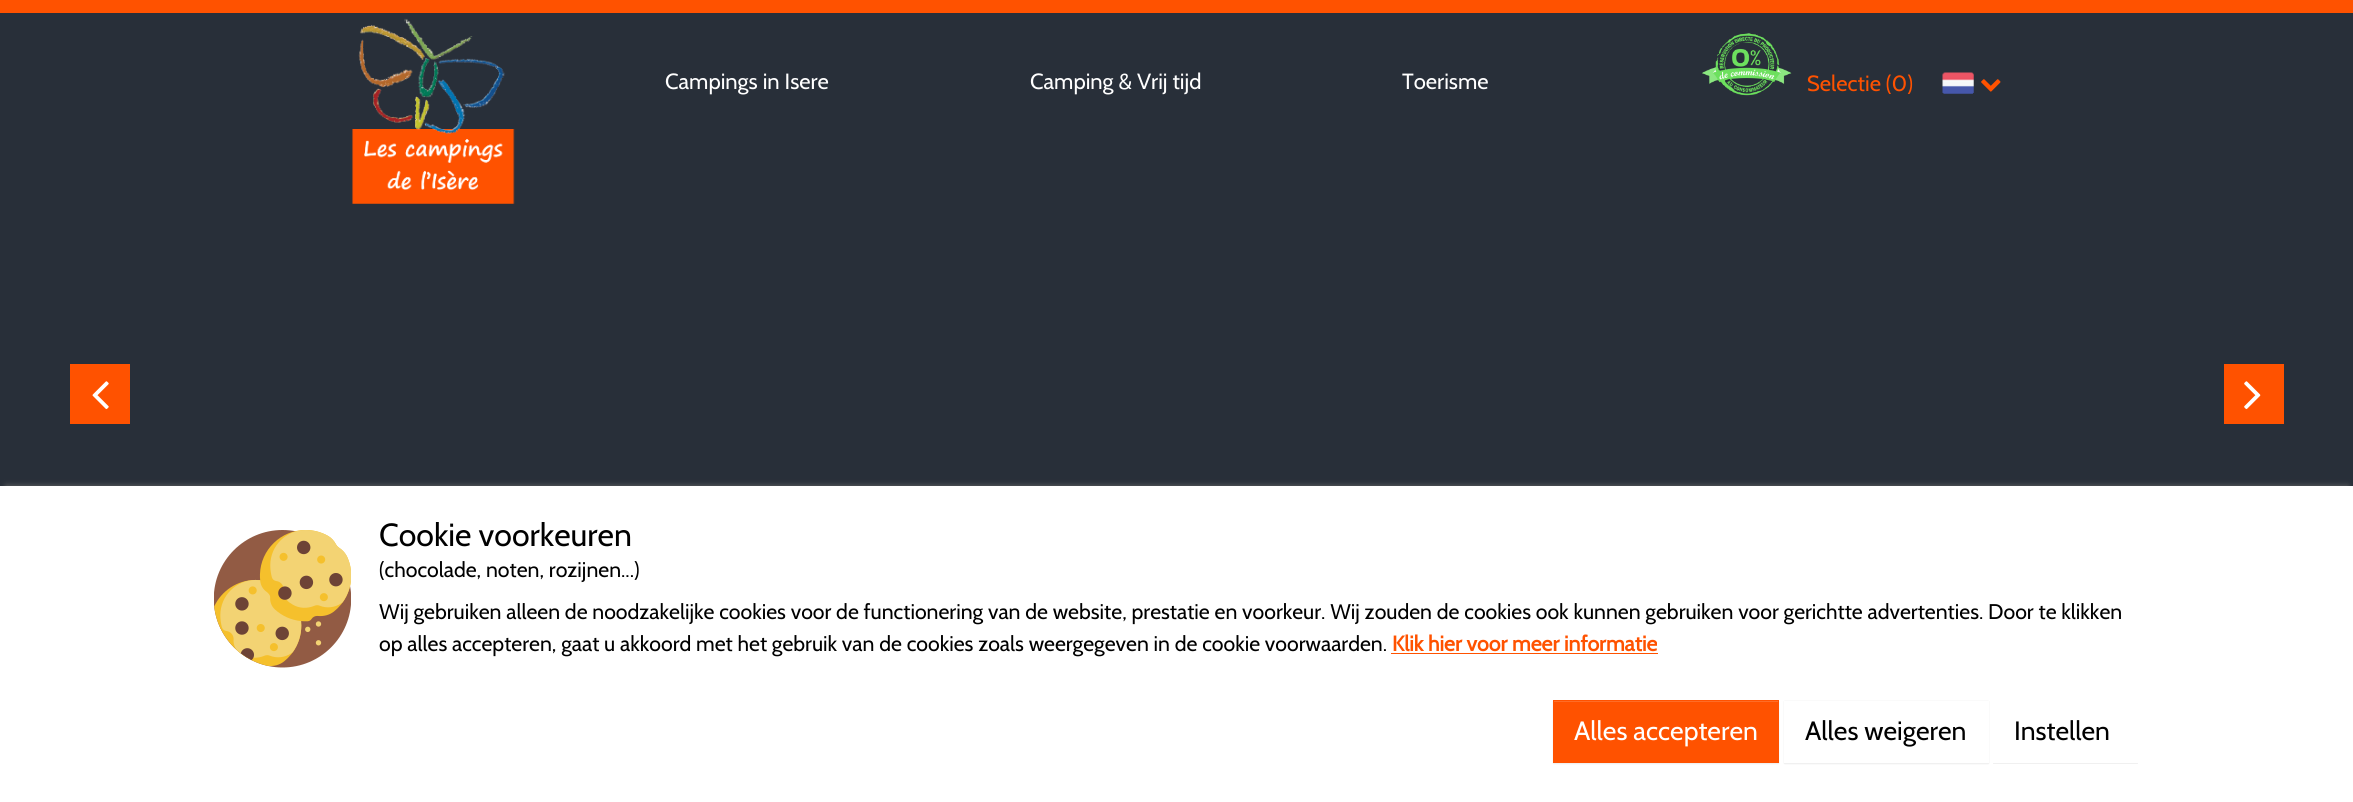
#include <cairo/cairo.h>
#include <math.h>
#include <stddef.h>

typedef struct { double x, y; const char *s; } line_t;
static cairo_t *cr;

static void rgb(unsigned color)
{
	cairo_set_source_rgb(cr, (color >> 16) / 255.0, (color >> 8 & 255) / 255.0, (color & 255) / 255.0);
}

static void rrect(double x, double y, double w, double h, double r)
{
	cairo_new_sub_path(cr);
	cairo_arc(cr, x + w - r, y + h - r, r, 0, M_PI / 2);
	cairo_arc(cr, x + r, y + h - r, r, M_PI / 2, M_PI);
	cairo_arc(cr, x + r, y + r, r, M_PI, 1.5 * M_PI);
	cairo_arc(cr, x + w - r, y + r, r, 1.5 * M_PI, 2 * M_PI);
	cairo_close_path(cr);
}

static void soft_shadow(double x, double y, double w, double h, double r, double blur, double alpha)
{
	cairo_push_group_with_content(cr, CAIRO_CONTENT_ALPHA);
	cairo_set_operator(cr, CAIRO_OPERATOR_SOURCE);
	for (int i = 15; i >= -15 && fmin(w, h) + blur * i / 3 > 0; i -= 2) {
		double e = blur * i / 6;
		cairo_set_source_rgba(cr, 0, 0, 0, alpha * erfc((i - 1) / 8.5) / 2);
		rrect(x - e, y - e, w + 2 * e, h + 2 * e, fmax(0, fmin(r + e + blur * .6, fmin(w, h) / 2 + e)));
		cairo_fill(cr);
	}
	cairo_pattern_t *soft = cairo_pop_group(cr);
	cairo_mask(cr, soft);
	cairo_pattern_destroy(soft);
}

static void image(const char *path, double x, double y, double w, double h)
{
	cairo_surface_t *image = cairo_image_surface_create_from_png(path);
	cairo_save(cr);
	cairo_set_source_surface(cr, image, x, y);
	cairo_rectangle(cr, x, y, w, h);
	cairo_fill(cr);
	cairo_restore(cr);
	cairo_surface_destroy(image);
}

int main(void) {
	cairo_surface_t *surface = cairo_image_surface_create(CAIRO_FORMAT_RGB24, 2353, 802);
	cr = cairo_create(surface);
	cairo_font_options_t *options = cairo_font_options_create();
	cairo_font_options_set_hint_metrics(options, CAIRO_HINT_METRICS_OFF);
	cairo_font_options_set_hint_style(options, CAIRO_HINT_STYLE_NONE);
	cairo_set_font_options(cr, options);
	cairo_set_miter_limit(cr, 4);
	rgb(0x282f39);
	cairo_paint(cr);
	rgb(0xff5200);
	cairo_rectangle(cr, 0, 0, 2353, 13);
	cairo_fill(cr);
	image("img/1.png", 352, 18, 163, 186);
	image("img/2.png", 1702, 33, 90, 63);
	image("img/3.png", 1942, 72, 32, 22);
	image("img/4.png", 1981, 79, 20, 13);
	cairo_rectangle(cr, 70, 364, 60, 60);
	cairo_fill(cr);
	image("img/5.png", 92, 381, 17, 29);
	cairo_rectangle(cr, 2224, 364, 60, 60);
	cairo_fill(cr);
	image("img/6.png", 2244, 381, 17, 29);
	rgb(0x696969);
	soft_shadow(6, 486, 2342, 304, 0, 3, 1);
	rgb(0xffffff);
	cairo_rectangle(cr, 0, 486, 2353, 316);
	cairo_fill(cr);
	image("img/7.png", 214, 530, 137, 138);
	rgb(0xff5200);
	cairo_rectangle(cr, 1391, 653, 267, 1);
	cairo_fill(cr);
	rgb(0x000000);
	soft_shadow(1553, 701, 226, 63, 0, 0.5, 0.07);
	rgb(0xff5200);
	cairo_rectangle(cr, 1553, 700, 226, 63);
	cairo_fill(cr);
	rgb(0xff6c26);
	cairo_rectangle(cr, 1554, 701, 224, 1);
	cairo_fill(cr);
	rgb(0x000000);
	soft_shadow(1784, 701, 205, 63, 0, 0.5, 0.07);
	rgb(0xffffff);
	cairo_rectangle(cr, 1784, 701, 205, 62);
	cairo_fill(cr);
	cairo_save(cr);
	cairo_rectangle(cr, 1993, 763, 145, 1);
	cairo_clip(cr);
	rgb(0x000000);
	soft_shadow(1993, 701, 145, 63, 0, 0.5, 0.07);
	cairo_restore(cr);
	cairo_rectangle(cr, 1993.5, 700.5, 144, 62);
	cairo_set_line_width(cr, 1);
	cairo_stroke(cr);
	cairo_select_font_face(cr, "Cabin", CAIRO_FONT_SLANT_NORMAL, CAIRO_FONT_WEIGHT_NORMAL);
	cairo_set_font_size(cr, 22);
	{
		static const line_t items[] = {
			{665, 89, "Campings in Isere"},
			{1030, 89, "Camping & Vrij tijd"},
			{1402, 89, "Toerisme"},
		};
		for (size_t i = 0; i < sizeof items / sizeof *items; i++) {
			cairo_move_to(cr, items[i].x, items[i].y);
			cairo_show_text(cr, items[i].s);
		}
	}
	rgb(0xff5200);
	cairo_move_to(cr, 1807, 91);
	cairo_show_text(cr, "Selectie (0)");
	cairo_set_font_size(cr, 32);
	rgb(0x000000);
	cairo_move_to(cr, 379, 546);
	cairo_show_text(cr, "Cookie voorkeuren");
	cairo_set_font_size(cr, 21.25);
	{
		static const line_t items[] = {
			{379, 577, "(chocolade, noten, rozijnen...)"},
			{379, 619, "Wij gebruiken alleen de noodzakelijke cookies voor de functionering van de website, prestatie en voorkeur. Wij zouden de cookies ook kunnen gebruiken voor gerichtte advertenties. Door te klikken"},
			{379, 651, "op alles accepteren, gaat u akkoord met het gebruik van de cookies zoals weergegeven in de cookie voorwaarden."},
		};
		for (size_t i = 0; i < sizeof items / sizeof *items; i++) {
			cairo_move_to(cr, items[i].x, items[i].y);
			cairo_show_text(cr, items[i].s);
		}
	}
	cairo_select_font_face(cr, "Cabin", CAIRO_FONT_SLANT_NORMAL, CAIRO_FONT_WEIGHT_BOLD);
	rgb(0xff5200);
	cairo_move_to(cr, 1392, 651);
	cairo_show_text(cr, "Klik hier voor meer informatie");
	cairo_select_font_face(cr, "Cabin", CAIRO_FONT_SLANT_NORMAL, CAIRO_FONT_WEIGHT_NORMAL);
	cairo_set_font_size(cr, 26.5);
	rgb(0xffffff);
	cairo_move_to(cr, 1574, 740);
	cairo_show_text(cr, "Alles accepteren");
	rgb(0x000000);
	cairo_move_to(cr, 1805, 740);
	cairo_show_text(cr, "Alles weigeren");
	cairo_move_to(cr, 2014, 740);
	cairo_show_text(cr, "Instellen");
	cairo_surface_write_to_png(surface, "page.png");
	cairo_font_options_destroy(options);
	cairo_destroy(cr);
	cairo_surface_destroy(surface);
	return 0;
}
